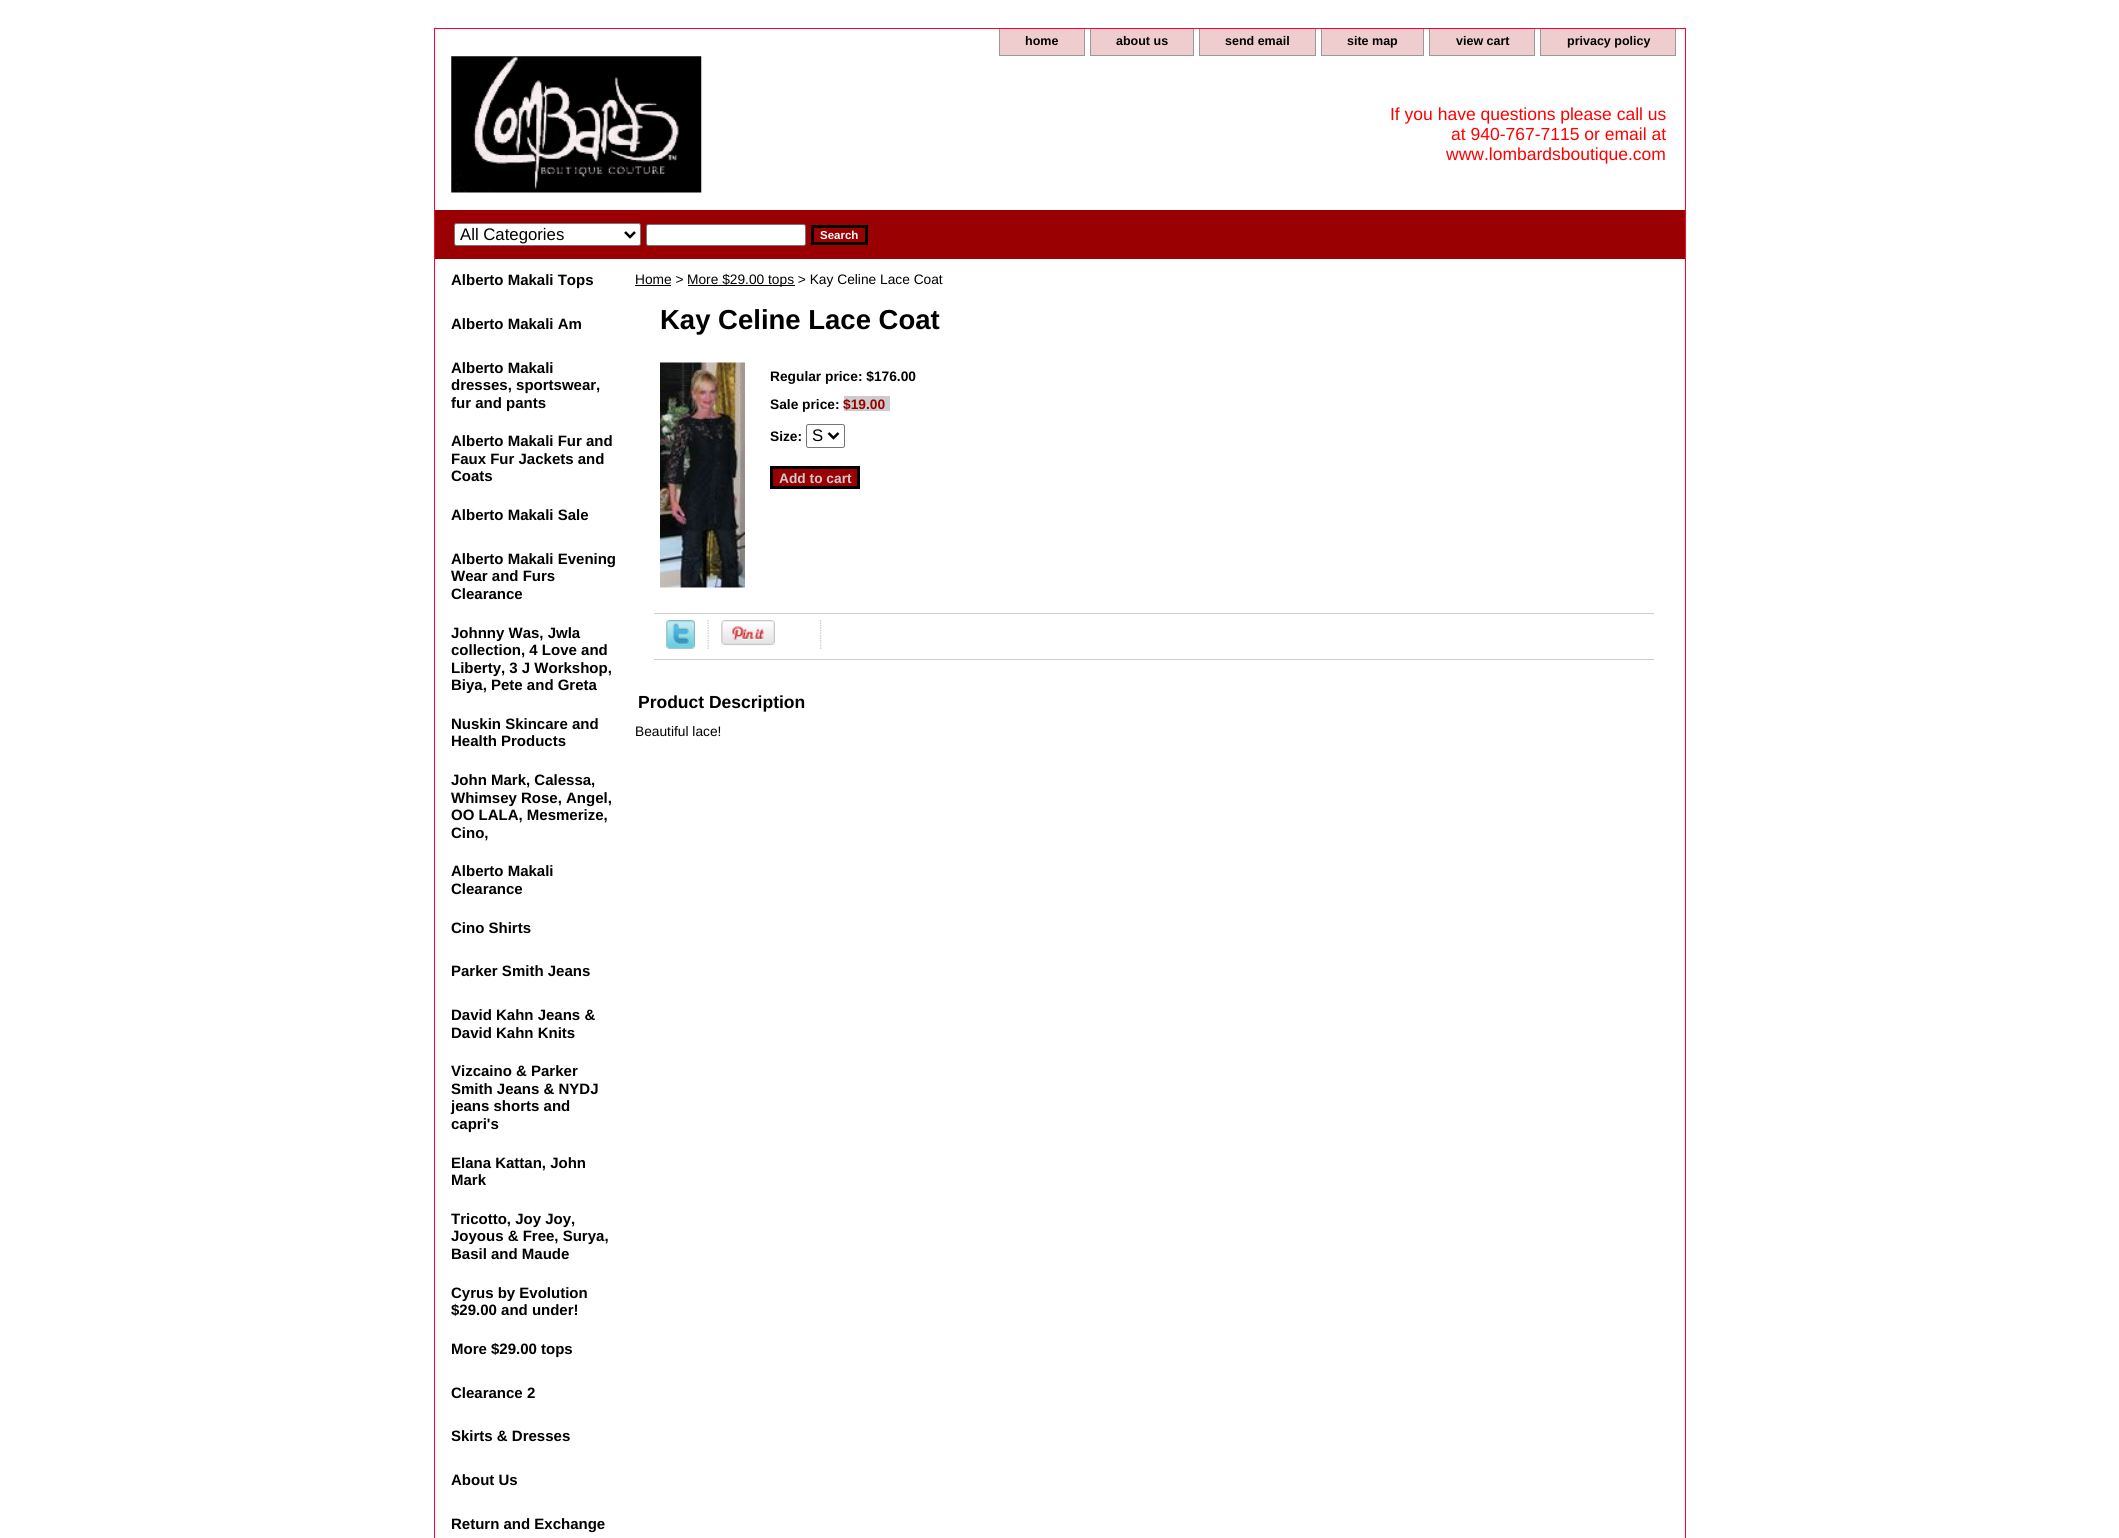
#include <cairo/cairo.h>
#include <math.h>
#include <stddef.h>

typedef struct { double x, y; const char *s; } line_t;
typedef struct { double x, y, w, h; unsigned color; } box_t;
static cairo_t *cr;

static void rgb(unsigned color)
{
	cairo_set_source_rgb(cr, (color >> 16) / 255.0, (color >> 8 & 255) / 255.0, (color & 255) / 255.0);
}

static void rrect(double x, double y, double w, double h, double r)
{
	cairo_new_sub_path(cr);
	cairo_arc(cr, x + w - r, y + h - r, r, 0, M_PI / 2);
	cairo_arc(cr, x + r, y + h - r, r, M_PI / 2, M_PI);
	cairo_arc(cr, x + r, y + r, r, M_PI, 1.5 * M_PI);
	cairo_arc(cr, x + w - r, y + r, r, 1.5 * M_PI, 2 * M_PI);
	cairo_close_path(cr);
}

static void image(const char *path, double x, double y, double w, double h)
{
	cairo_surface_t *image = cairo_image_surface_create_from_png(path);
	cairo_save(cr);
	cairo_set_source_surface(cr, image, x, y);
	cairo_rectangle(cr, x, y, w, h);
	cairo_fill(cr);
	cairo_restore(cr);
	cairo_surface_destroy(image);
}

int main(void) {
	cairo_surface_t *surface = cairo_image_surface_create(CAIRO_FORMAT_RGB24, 2119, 1538);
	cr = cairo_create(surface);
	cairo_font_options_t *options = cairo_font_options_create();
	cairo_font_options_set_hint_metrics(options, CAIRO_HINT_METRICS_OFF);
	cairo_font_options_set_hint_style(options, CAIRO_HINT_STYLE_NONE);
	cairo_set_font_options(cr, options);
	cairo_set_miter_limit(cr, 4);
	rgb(0xffffff);
	cairo_paint(cr);
	cairo_rectangle(cr, 434.5, 28.5, 1251, 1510);
	rgb(0xff0033);
	cairo_set_line_width(cr, 1);
	cairo_stroke(cr);
	{
		static const box_t items[] = {
			{1000, 29, 84, 26, 0xefcdce},
			{1084, 29, 1, 27, 0x999999},
			{999, 55, 86, 1, 0x999999},
			{999, 29, 1, 27, 0x999999},
			{1091, 29, 102, 26, 0xefcdce},
			{1193, 29, 1, 27, 0x999999},
			{1090, 55, 104, 1, 0x999999},
			{1090, 29, 1, 27, 0x999999},
			{1200, 29, 115, 26, 0xefcdce},
			{1315, 29, 1, 27, 0x999999},
			{1199, 55, 117, 1, 0x999999},
			{1199, 29, 1, 27, 0x999999},
			{1322, 29, 101, 26, 0xefcdce},
			{1423, 29, 1, 27, 0x999999},
			{1321, 55, 103, 1, 0x999999},
			{1321, 29, 1, 27, 0x999999},
			{1430, 29, 104, 26, 0xefcdce},
			{1534, 29, 1, 27, 0x999999},
			{1429, 55, 106, 1, 0x999999},
			{1429, 29, 1, 27, 0x999999},
			{1541, 29, 134, 26, 0xefcdce},
			{1675, 29, 1, 27, 0x999999},
			{1540, 55, 136, 1, 0x999999},
			{1540, 29, 1, 27, 0x999999},
		};
		for (size_t i = 0; i < sizeof items / sizeof *items; i++) {
			rgb(items[i].color);
			cairo_rectangle(cr, items[i].x, items[i].y, items[i].w, items[i].h);
			cairo_fill(cr);
		}
	}
	image("img/1.png", 451, 56, 251, 137);
	rgb(0x9a0002);
	cairo_rectangle(cr, 435, 210, 1250, 49);
	cairo_fill(cr);
	rgb(0xffffff);
	rrect(454.5, 223.5, 186, 22, 2);
	cairo_fill_preserve(cr);
	rgb(0x767676);
	cairo_stroke(cr);
	cairo_new_path(cr);
	cairo_move_to(cr, 625, 232);
	cairo_line_to(cr, 630, 237);
	cairo_line_to(cr, 635, 232);
	rgb(0x000000);
	cairo_set_line_width(cr, 2.5);
	cairo_stroke(cr);
	rgb(0xffffff);
	rrect(646.5, 224.5, 159, 21, 2);
	cairo_fill_preserve(cr);
	rgb(0x767676);
	cairo_set_line_width(cr, 1);
	cairo_stroke(cr);
	cairo_rectangle(cr, 812.5, 226.5, 54, 17);
	rgb(0x000000);
	cairo_set_line_width(cr, 3);
	cairo_stroke(cr);
	cairo_rectangle(cr, 635, 285, 36, 1);
	cairo_fill(cr);
	cairo_rectangle(cr, 688, 285, 107, 1);
	cairo_fill(cr);
	image("img/2.png", 660, 362, 85, 226);
	rgb(0xcccccc);
	cairo_rectangle(cr, 844, 396, 46, 15);
	cairo_fill(cr);
	rrect(806.5, 424.5, 38, 23, 2);
	rgb(0x767676);
	cairo_set_line_width(cr, 1);
	cairo_stroke(cr);
	cairo_new_path(cr);
	cairo_move_to(cr, 828.5, 433);
	cairo_line_to(cr, 833.5, 438);
	cairo_line_to(cr, 838.5, 433);
	rgb(0x000000);
	cairo_set_line_width(cr, 2.5);
	cairo_stroke(cr);
	rgb(0x9a0002);
	cairo_rectangle(cr, 771.5, 467.5, 87, 20);
	cairo_fill_preserve(cr);
	rgb(0x000000);
	cairo_set_line_width(cr, 3);
	cairo_stroke(cr);
	rgb(0xcfcece);
	cairo_rectangle(cr, 654, 613, 1000, 1);
	cairo_fill(cr);
	image("img/3.png", 666, 620, 29, 29);
	image("img/4.png", 707, 620, 2, 29);
	image("img/5.png", 721, 620, 54, 26);
	image("img/6.png", 820, 620, 2, 29);
	cairo_rectangle(cr, 654, 659, 1000, 1);
	cairo_fill(cr);
	cairo_select_font_face(cr, "Liberation Sans", CAIRO_FONT_SLANT_NORMAL, CAIRO_FONT_WEIGHT_BOLD);
	cairo_set_font_size(cr, 12.5);
	rgb(0x000000);
	{
		static const line_t items[] = {
			{1025, 45, "home"},
			{1116, 45, "about us"},
			{1225, 45, "send email"},
			{1347, 45, "site map"},
			{1456, 45, "view cart"},
			{1567, 45, "privacy policy"},
		};
		for (size_t i = 0; i < sizeof items / sizeof *items; i++) {
			cairo_move_to(cr, items[i].x, items[i].y);
			cairo_show_text(cr, items[i].s);
		}
	}
	cairo_select_font_face(cr, "Liberation Sans", CAIRO_FONT_SLANT_NORMAL, CAIRO_FONT_WEIGHT_NORMAL);
	cairo_set_font_size(cr, 17.5);
	rgb(0xff0000);
	{
		static const line_t items[] = {
			{1390, 120, "If you have questions please call us"},
			{1451, 140, "at 940-767-7115 or email at"},
			{1446, 160, "www.lombardsboutique.com"},
		};
		for (size_t i = 0; i < sizeof items / sizeof *items; i++) {
			cairo_move_to(cr, items[i].x, items[i].y);
			cairo_show_text(cr, items[i].s);
		}
	}
	cairo_set_font_size(cr, 16.75);
	rgb(0x000000);
	cairo_move_to(cr, 460, 240);
	cairo_show_text(cr, "All Categories");
	cairo_select_font_face(cr, "Liberation Sans", CAIRO_FONT_SLANT_NORMAL, CAIRO_FONT_WEIGHT_BOLD);
	cairo_set_font_size(cr, 11.5);
	rgb(0xffffff);
	cairo_move_to(cr, 820, 239);
	cairo_show_text(cr, "Search");
	cairo_set_font_size(cr, 15);
	rgb(0x000000);
	{
		static const line_t items[] = {
			{451, 285, "Alberto Makali Tops"},
			{451, 329, "Alberto Makali Am"},
			{451, 373, "Alberto Makali"},
			{451, 390, "dresses, sportswear,"},
			{451, 408, "fur and pants"},
			{451, 446, "Alberto Makali Fur and"},
			{451, 464, "Faux Fur Jackets and"},
			{451, 481, "Coats"},
			{451, 520, "Alberto Makali Sale"},
			{451, 564, "Alberto Makali Evening"},
			{451, 581, "Wear and Furs"},
			{451, 599, "Clearance"},
			{451, 638, "Johnny Was, Jwla"},
			{451, 655, "collection, 4 Love and"},
			{451, 673, "Liberty, 3 J Workshop,"},
			{451, 690, "Biya, Pete and Greta"},
			{451, 729, "Nuskin Skincare and"},
			{451, 746, "Health Products"},
			{451, 785, "John Mark, Calessa,"},
			{451, 803, "Whimsey Rose, Angel,"},
			{451, 820, "OO LALA, Mesmerize,"},
			{451, 838, "Cino,"},
			{451, 876, "Alberto Makali"},
			{451, 894, "Clearance"},
			{451, 933, "Cino Shirts"},
			{451, 976, "Parker Smith Jeans"},
			{451, 1020, "David Kahn Jeans &"},
			{451, 1038, "David Kahn Knits"},
			{451, 1076, "Vizcaino & Parker"},
			{451, 1094, "Smith Jeans & NYDJ"},
			{451, 1111, "jeans shorts and"},
			{451, 1129, "capri's"},
			{451, 1168, "Elana Kattan, John"},
			{451, 1185, "Mark"},
			{451, 1224, "Tricotto, Joy Joy,"},
			{451, 1241, "Joyous & Free, Surya,"},
			{451, 1259, "Basil and Maude"},
			{451, 1298, "Cyrus by Evolution"},
			{451, 1315, "$29.00 and under!"},
			{451, 1354, "More $29.00 tops"},
			{451, 1398, "Clearance 2"},
			{451, 1441, "Skirts & Dresses"},
			{451, 1485, "About Us"},
			{451, 1529, "Return and Exchange"},
		};
		for (size_t i = 0; i < sizeof items / sizeof *items; i++) {
			cairo_move_to(cr, items[i].x, items[i].y);
			cairo_show_text(cr, items[i].s);
		}
	}
	cairo_select_font_face(cr, "Liberation Sans", CAIRO_FONT_SLANT_NORMAL, CAIRO_FONT_WEIGHT_NORMAL);
	cairo_set_font_size(cr, 13.75);
	cairo_move_to(cr, 635, 284);
	cairo_show_text(cr, "Home >");
	cairo_move_to(cr, 687, 284);
	cairo_show_text(cr, "More $29.00 tops > Kay Celine Lace Coat");
	cairo_select_font_face(cr, "Liberation Sans", CAIRO_FONT_SLANT_NORMAL, CAIRO_FONT_WEIGHT_BOLD);
	cairo_set_font_size(cr, 27.5);
	cairo_move_to(cr, 660, 329);
	cairo_show_text(cr, "Kay Celine Lace Coat");
	cairo_set_font_size(cr, 13.75);
	cairo_move_to(cr, 770, 381);
	cairo_show_text(cr, "Regular price: $176.00");
	cairo_move_to(cr, 770, 409);
	cairo_show_text(cr, "Sale price:");
	rgb(0x9a0002);
	cairo_move_to(cr, 843, 409);
	cairo_show_text(cr, "$19.00");
	rgb(0x000000);
	cairo_move_to(cr, 770, 441);
	cairo_show_text(cr, "Size:");
	cairo_select_font_face(cr, "Liberation Sans", CAIRO_FONT_SLANT_NORMAL, CAIRO_FONT_WEIGHT_NORMAL);
	cairo_set_font_size(cr, 16.75);
	cairo_move_to(cr, 812, 441);
	cairo_show_text(cr, "S");
	cairo_select_font_face(cr, "Liberation Sans", CAIRO_FONT_SLANT_NORMAL, CAIRO_FONT_WEIGHT_BOLD);
	cairo_set_font_size(cr, 13.75);
	rgb(0xcccccc);
	cairo_move_to(cr, 779, 483);
	cairo_show_text(cr, "Add to cart");
	cairo_set_font_size(cr, 17.5);
	rgb(0x000000);
	cairo_move_to(cr, 638, 708);
	cairo_show_text(cr, "Product Description");
	cairo_select_font_face(cr, "Liberation Sans", CAIRO_FONT_SLANT_NORMAL, CAIRO_FONT_WEIGHT_NORMAL);
	cairo_set_font_size(cr, 13.75);
	cairo_move_to(cr, 635, 736);
	cairo_show_text(cr, "Beautiful lace!");
	cairo_surface_write_to_png(surface, "page.png");
	cairo_font_options_destroy(options);
	cairo_destroy(cr);
	cairo_surface_destroy(surface);
	return 0;
}
